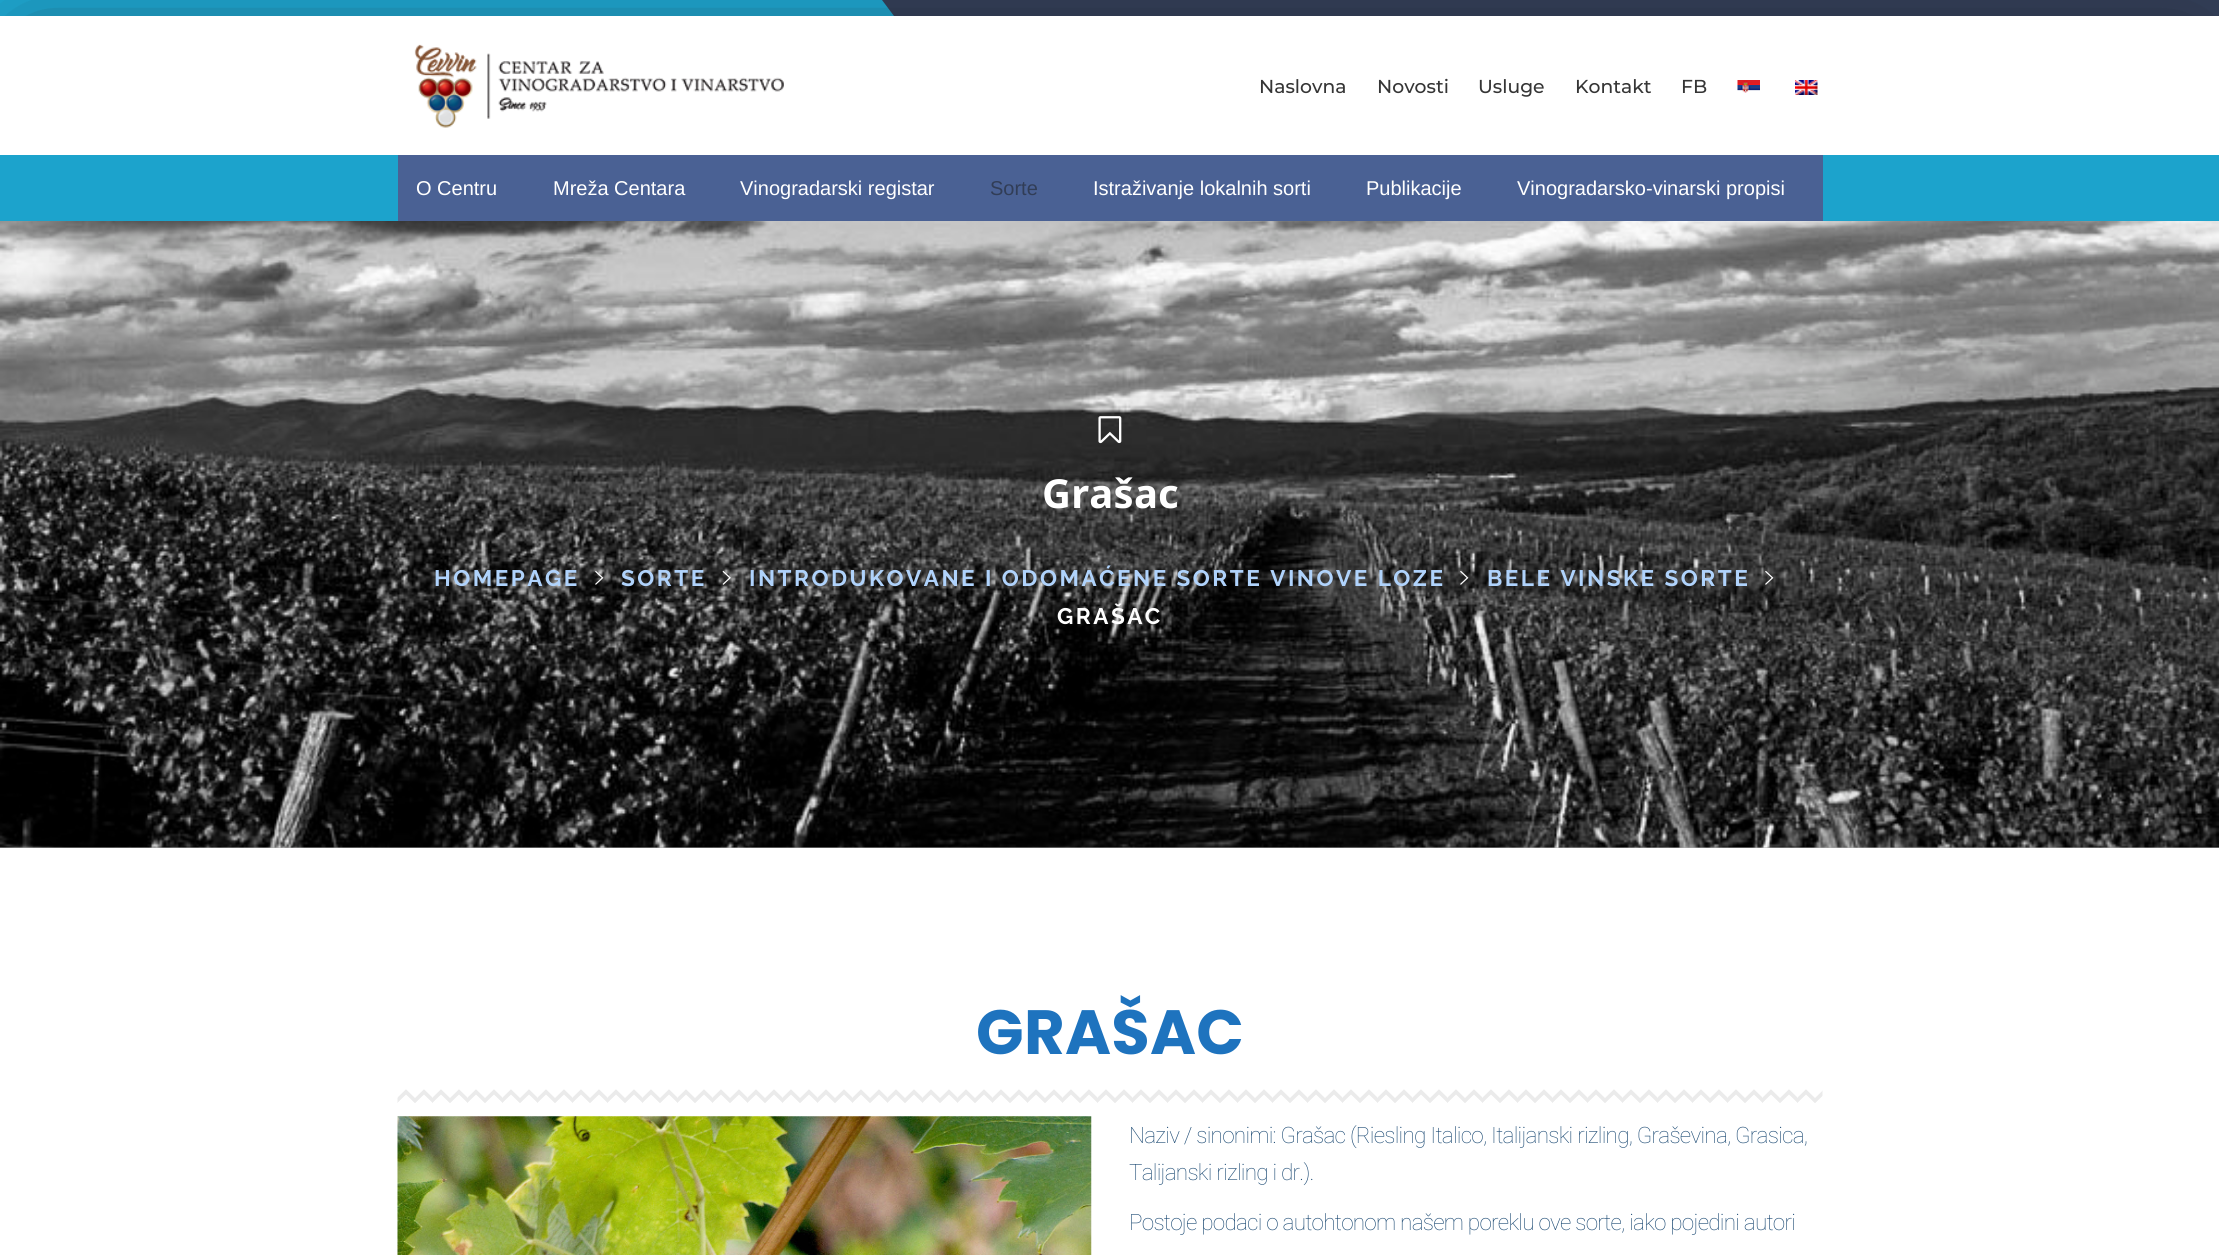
#include <cairo/cairo.h>
#include <math.h>
#include <stddef.h>

typedef struct { double x, y; const char *s; } line_t;
typedef struct { double x, y, w, h; unsigned color; } box_t;
static cairo_t *cr;

static void rgb(unsigned color)
{
	cairo_set_source_rgb(cr, (color >> 16) / 255.0, (color >> 8 & 255) / 255.0, (color & 255) / 255.0);
}

static void tracked(double x, double y, const char *s, double letter, double word)
{
	cairo_move_to(cr, x, y);
	while (*s) {
		char ch[5] = {0};
		int n = 0;
		do ch[n++] = *s++; while ((*s & 0xC0) == 0x80);
		cairo_show_text(cr, ch);
		cairo_rel_move_to(cr, letter + word * (*ch == ' '), 0);
	}
}

static void rrect(double x, double y, double w, double h, double r)
{
	cairo_new_sub_path(cr);
	cairo_arc(cr, x + w - r, y + h - r, r, 0, M_PI / 2);
	cairo_arc(cr, x + r, y + h - r, r, M_PI / 2, M_PI);
	cairo_arc(cr, x + r, y + r, r, M_PI, 1.5 * M_PI);
	cairo_arc(cr, x + w - r, y + r, r, 1.5 * M_PI, 2 * M_PI);
	cairo_close_path(cr);
}

static void soft_shadow(double x, double y, double w, double h, double r, double blur, double alpha)
{
	cairo_push_group_with_content(cr, CAIRO_CONTENT_ALPHA);
	cairo_set_operator(cr, CAIRO_OPERATOR_SOURCE);
	for (int i = 15; i >= -15 && fmin(w, h) + blur * i / 3 > 0; i -= 2) {
		double e = blur * i / 6;
		cairo_set_source_rgba(cr, 0, 0, 0, alpha * erfc((i - 1) / 8.5) / 2);
		rrect(x - e, y - e, w + 2 * e, h + 2 * e, fmax(0, fmin(r + e + blur * .6, fmin(w, h) / 2 + e)));
		cairo_fill(cr);
	}
	cairo_pattern_t *soft = cairo_pop_group(cr);
	cairo_mask(cr, soft);
	cairo_pattern_destroy(soft);
}

static void image(const char *path, double x, double y, double w, double h)
{
	cairo_surface_t *image = cairo_image_surface_create_from_png(path);
	cairo_save(cr);
	cairo_set_source_surface(cr, image, x, y);
	cairo_rectangle(cr, x, y, w, h);
	cairo_fill(cr);
	cairo_restore(cr);
	cairo_surface_destroy(image);
}

int main(void) {
	cairo_surface_t *surface = cairo_image_surface_create(CAIRO_FORMAT_RGB24, 2219, 1255);
	cr = cairo_create(surface);
	cairo_font_options_t *options = cairo_font_options_create();
	cairo_font_options_set_hint_metrics(options, CAIRO_HINT_METRICS_OFF);
	cairo_font_options_set_hint_style(options, CAIRO_HINT_STYLE_NONE);
	cairo_set_font_options(cr, options);
	cairo_set_miter_limit(cr, 4);
	rgb(0xffffff);
	cairo_paint(cr);
	rgb(0x313d56);
	cairo_rectangle(cr, 882, 0, 1337, 16);
	cairo_fill(cr);
	rgb(0x1ca3cc);
	cairo_new_path(cr);
	cairo_move_to(cr, -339, 0);
	cairo_line_to(cr, 882, 0);
	cairo_line_to(cr, 894, 16);
	cairo_line_to(cr, -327, 16);
	cairo_close_path(cr);
	cairo_fill(cr);
	rgb(0x222222);
	soft_shadow(35, 51, 2150, 102, 0, 37, 1);
	rgb(0xffffff);
	cairo_rectangle(cr, 0, 16, 2219, 139);
	cairo_fill(cr);
	image("img/1.png", 414, 44, 370, 84);
	image("img/2.png", 1737, 80, 23, 13);
	image("img/3.png", 1795, 80, 23, 15);
	{
		static const box_t items[] = {
			{0, 155, 2219, 66, 0x1ca3cc},
			{398, 155, 1425, 66, 0x4a6194},
			{0, 847, 2219, 1, 0xaaaaaa},
		};
		for (size_t i = 0; i < sizeof items / sizeof *items; i++) {
			rgb(items[i].color);
			cairo_rectangle(cr, items[i].x, items[i].y, items[i].w, items[i].h);
			cairo_fill(cr);
		}
	}
	image("img/4.png", 0, 221, 2219, 627);
	image("img/5.png", 1098, 416, 24, 28);
	image("img/6.png", 595, 570, 9, 15);
	image("img/7.png", 722, 570, 9, 15);
	image("img/8.png", 1460, 570, 9, 15);
	image("img/9.png", 1765, 570, 9, 15);
	image("img/10.png", 397, 1089, 1426, 14);
	image("img/11.png", 397, 1116, 695, 139);
	cairo_select_font_face(cr, "Montserrat Medium", CAIRO_FONT_SLANT_NORMAL, CAIRO_FONT_WEIGHT_NORMAL);
	cairo_set_font_size(cr, 18.75);
	rgb(0x353535);
	{
		static const line_t items[] = {
			{1259, 93, "Naslovna"},
			{1377, 93, "Novosti"},
			{1478, 93, "Usluge"},
			{1575, 93, "Kontakt"},
			{1681, 93, "FB"},
		};
		for (size_t i = 0; i < sizeof items / sizeof *items; i++) {
			cairo_move_to(cr, items[i].x, items[i].y);
			cairo_show_text(cr, items[i].s);
		}
	}
	cairo_select_font_face(cr, "Arimo", CAIRO_FONT_SLANT_NORMAL, CAIRO_FONT_WEIGHT_NORMAL);
	cairo_set_font_size(cr, 20);
	rgb(0xffffff);
	{
		static const line_t items[] = {
			{416, 195, "O Centru"},
			{553, 195, "Mreža Centara"},
			{740, 195, "Vinogradarski registar"},
		};
		for (size_t i = 0; i < sizeof items / sizeof *items; i++) {
			cairo_move_to(cr, items[i].x, items[i].y);
			cairo_show_text(cr, items[i].s);
		}
	}
	rgb(0x313d56);
	cairo_move_to(cr, 990, 195);
	cairo_show_text(cr, "Sorte");
	rgb(0xffffff);
	{
		static const line_t items[] = {
			{1093, 195, "Istraživanje lokalnih sorti"},
			{1366, 195, "Publikacije"},
			{1517, 195, "Vinogradarsko-vinarski propisi"},
		};
		for (size_t i = 0; i < sizeof items / sizeof *items; i++) {
			cairo_move_to(cr, items[i].x, items[i].y);
			cairo_show_text(cr, items[i].s);
		}
	}
	cairo_select_font_face(cr, "Noto Sans", CAIRO_FONT_SLANT_NORMAL, CAIRO_FONT_WEIGHT_BOLD);
	cairo_set_font_size(cr, 40);
	tracked(1042, 508, "Grašac", 0.25, 0);
	cairo_select_font_face(cr, "Raleway", CAIRO_FONT_SLANT_NORMAL, CAIRO_FONT_WEIGHT_BOLD);
	cairo_set_font_size(cr, 22.5);
	rgb(0xb0d3fc);
	{
		static const line_t items[] = {
			{434, 586, "HOMEPAGE"},
			{621, 586, "SORTE"},
			{749, 586, "INTRODUKOVANE I ODOMAĆENE SORTE VINOVE LOZE"},
			{1487, 586, "BELE VINSKE SORTE"},
		};
		for (size_t i = 0; i < sizeof items / sizeof *items; i++) {
			tracked(items[i].x, items[i].y, items[i].s, 2.5, 0);
		}
	}
	rgb(0xffffff);
	tracked(1057, 624, "GRAŠAC", 2.5, 0);
	cairo_select_font_face(cr, "Poppins", CAIRO_FONT_SLANT_NORMAL, CAIRO_FONT_WEIGHT_BOLD);
	cairo_set_font_size(cr, 62.5);
	rgb(0x1e73be);
	tracked(976, 1054, "GRAŠAC", 0.25, 0);
	cairo_select_font_face(cr, "Roboto Thin", CAIRO_FONT_SLANT_NORMAL, CAIRO_FONT_WEIGHT_NORMAL);
	cairo_set_font_size(cr, 22.5);
	rgb(0x184771);
	{
		static const line_t items[] = {
			{1129, 1143, "Naziv / sinonimi: Grašac (Riesling Italico, Italijanski rizling, Graševina, Grasica,"},
			{1129, 1180, "Talijanski rizling i dr.)."},
			{1129, 1230, "Postoje podaci o autohtonom našem poreklu ove sorte, iako pojedini autori"},
		};
		for (size_t i = 0; i < sizeof items / sizeof *items; i++) {
			tracked(items[i].x, items[i].y, items[i].s, -0.75, 0);
		}
	}
	cairo_surface_write_to_png(surface, "page.png");
	cairo_font_options_destroy(options);
	cairo_destroy(cr);
	cairo_surface_destroy(surface);
	return 0;
}
